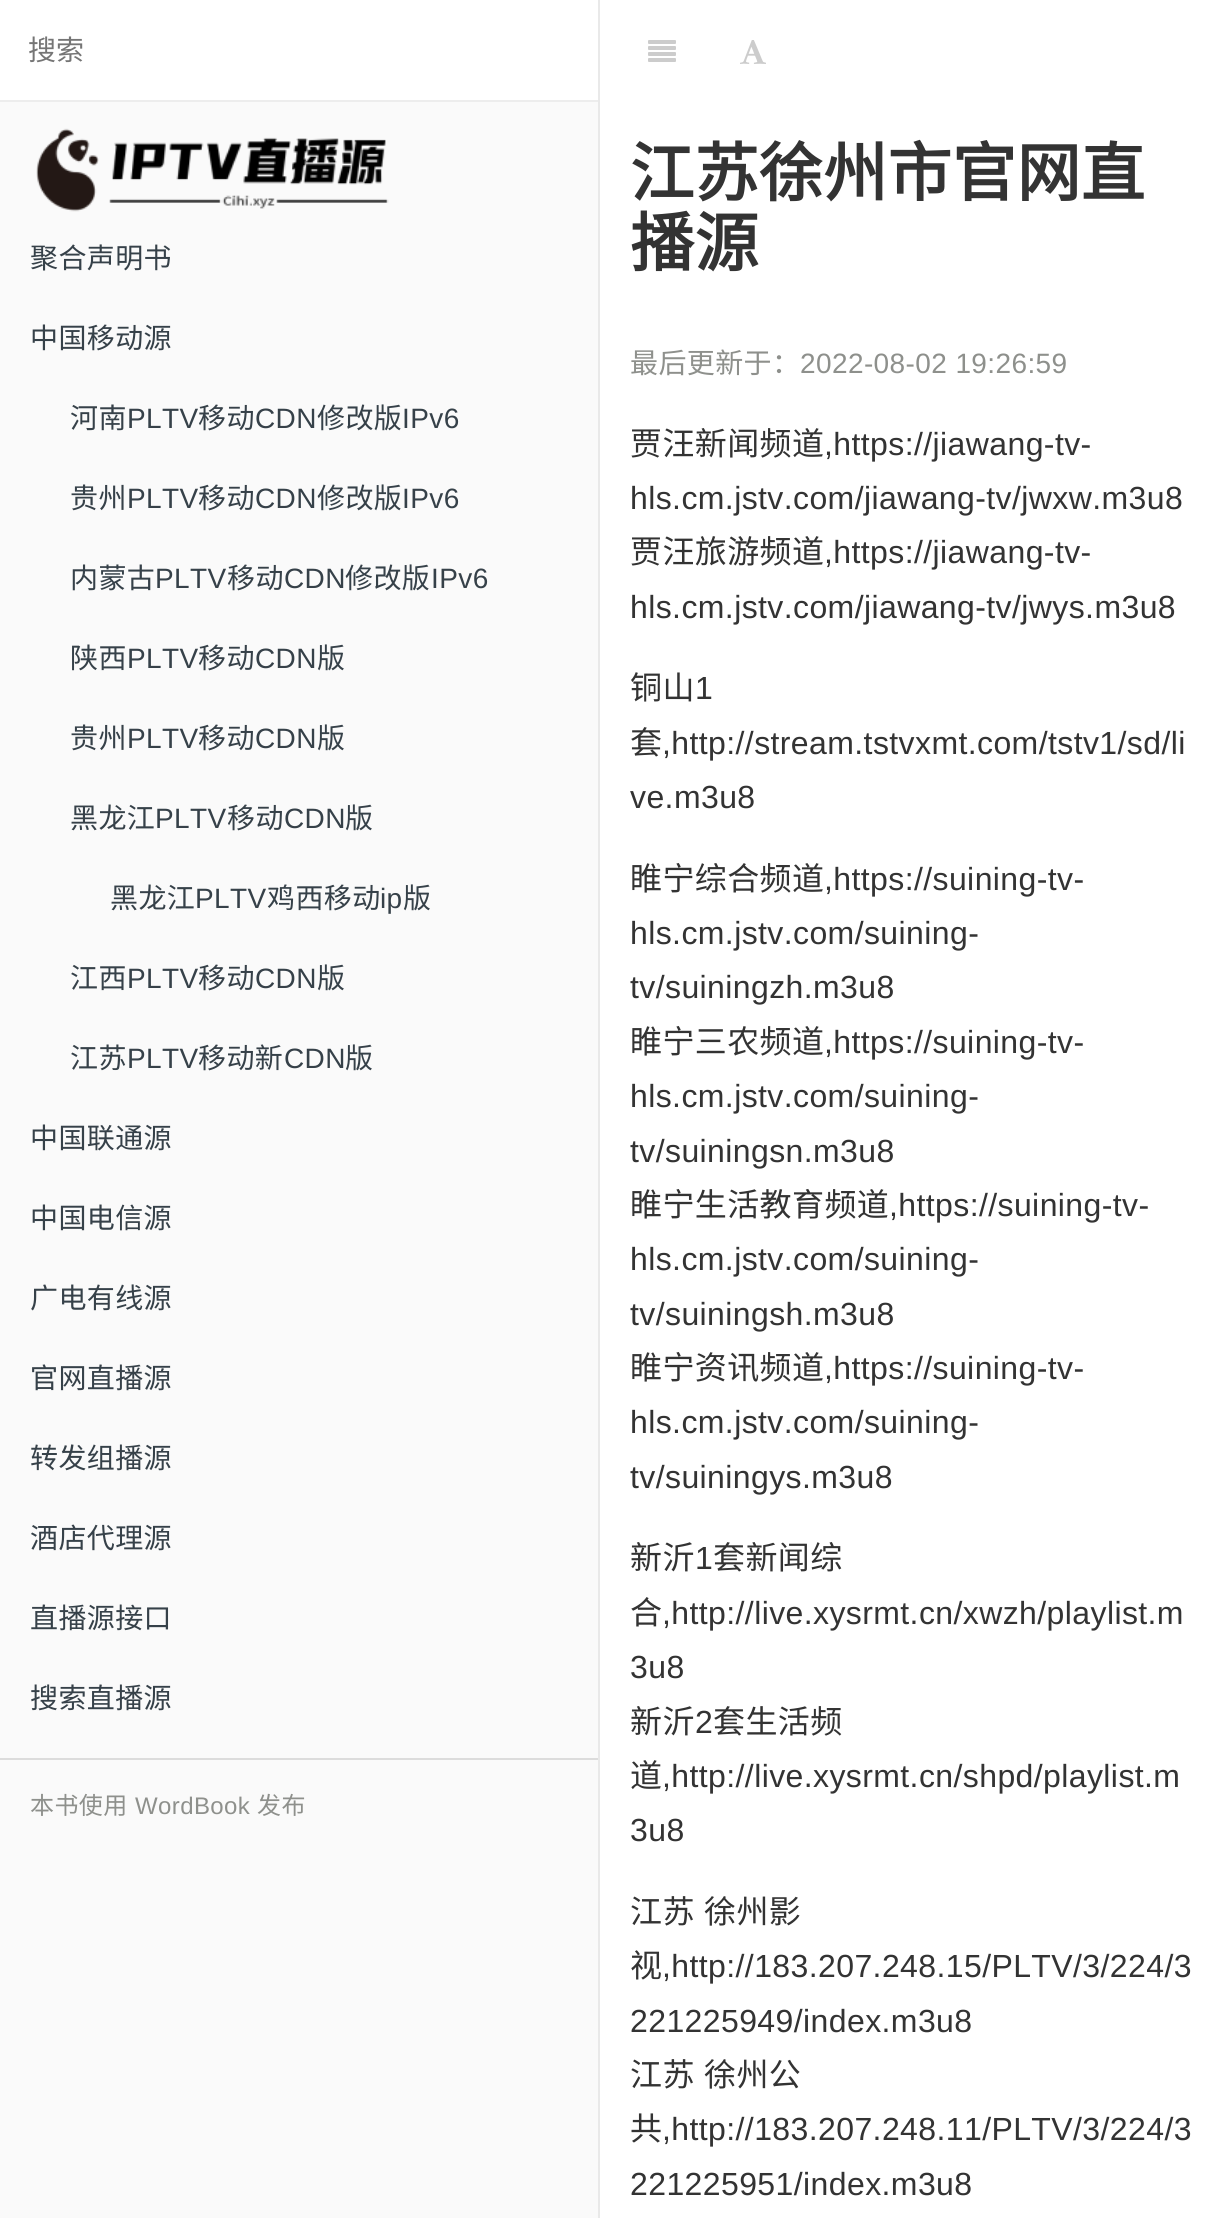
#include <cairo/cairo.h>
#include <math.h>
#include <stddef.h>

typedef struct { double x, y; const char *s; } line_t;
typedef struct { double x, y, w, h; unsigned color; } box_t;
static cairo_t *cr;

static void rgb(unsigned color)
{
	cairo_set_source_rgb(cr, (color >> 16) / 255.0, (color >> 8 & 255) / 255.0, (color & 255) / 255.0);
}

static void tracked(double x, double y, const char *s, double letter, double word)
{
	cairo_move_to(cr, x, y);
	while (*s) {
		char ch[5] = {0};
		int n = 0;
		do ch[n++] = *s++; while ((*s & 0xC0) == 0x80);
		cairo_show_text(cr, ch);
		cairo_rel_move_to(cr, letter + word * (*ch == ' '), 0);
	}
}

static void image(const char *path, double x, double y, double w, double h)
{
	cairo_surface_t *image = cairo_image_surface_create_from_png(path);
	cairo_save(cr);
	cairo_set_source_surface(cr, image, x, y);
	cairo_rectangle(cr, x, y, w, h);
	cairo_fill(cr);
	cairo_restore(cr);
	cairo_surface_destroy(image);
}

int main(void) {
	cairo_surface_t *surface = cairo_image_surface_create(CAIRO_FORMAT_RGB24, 1224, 2218);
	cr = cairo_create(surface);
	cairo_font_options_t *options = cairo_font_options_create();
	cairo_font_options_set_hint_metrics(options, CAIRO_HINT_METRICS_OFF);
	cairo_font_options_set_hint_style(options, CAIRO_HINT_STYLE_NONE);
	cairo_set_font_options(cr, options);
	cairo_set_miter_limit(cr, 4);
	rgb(0xffffff);
	cairo_paint(cr);
	{
		static const box_t items[] = {
			{0, 102, 598, 2116, 0xfafafa},
			{598, 0, 2, 2218, 0xe9e9e9},
			{0, 100, 598, 2, 0xededed},
		};
		for (size_t i = 0; i < sizeof items / sizeof *items; i++) {
			rgb(items[i].color);
			cairo_rectangle(cr, items[i].x, items[i].y, items[i].w, items[i].h);
			cairo_fill(cr);
		}
	}
	image("img/1.png", 36, 128, 353, 84);
	rgb(0xdcdcdc);
	cairo_rectangle(cr, 0, 1758, 598, 2);
	cairo_fill(cr);
	image("img/2.png", 648, 40, 28, 22);
	image("img/3.png", 740, 40, 26, 24);
	cairo_select_font_face(cr, "Noto Sans CJK SC", CAIRO_FONT_SLANT_NORMAL, CAIRO_FONT_WEIGHT_NORMAL);
	cairo_set_font_size(cr, 28);
	rgb(0x757575);
	cairo_move_to(cr, 28, 60);
	cairo_show_text(cr, "搜索");
	rgb(0x364149);
	{
		static const line_t items[] = {
			{30, 268, "聚合声明书"},
			{30, 348, "中国移动源"},
			{70, 428, "河南"},
		};
		for (size_t i = 0; i < sizeof items / sizeof *items; i++) {
			tracked(items[i].x, items[i].y, items[i].s, 0.4, 0);
		}
	}
	cairo_select_font_face(cr, "Liberation Sans", CAIRO_FONT_SLANT_NORMAL, CAIRO_FONT_WEIGHT_NORMAL);
	tracked(127, 428, "PLTV", 0.4, 0);
	cairo_select_font_face(cr, "Noto Sans CJK SC", CAIRO_FONT_SLANT_NORMAL, CAIRO_FONT_WEIGHT_NORMAL);
	tracked(198, 428, "移动", 0.4, 0);
	cairo_select_font_face(cr, "Liberation Sans", CAIRO_FONT_SLANT_NORMAL, CAIRO_FONT_WEIGHT_NORMAL);
	tracked(255, 428, "CDN", 0.4, 0);
	cairo_select_font_face(cr, "Noto Sans CJK SC", CAIRO_FONT_SLANT_NORMAL, CAIRO_FONT_WEIGHT_NORMAL);
	tracked(317, 428, "修改版", 0.4, 0);
	cairo_select_font_face(cr, "Liberation Sans", CAIRO_FONT_SLANT_NORMAL, CAIRO_FONT_WEIGHT_NORMAL);
	tracked(402, 428, "IPv6", 0.4, 0);
	cairo_select_font_face(cr, "Noto Sans CJK SC", CAIRO_FONT_SLANT_NORMAL, CAIRO_FONT_WEIGHT_NORMAL);
	tracked(70, 508, "贵州", 0.4, 0);
	cairo_select_font_face(cr, "Liberation Sans", CAIRO_FONT_SLANT_NORMAL, CAIRO_FONT_WEIGHT_NORMAL);
	tracked(127, 508, "PLTV", 0.4, 0);
	cairo_select_font_face(cr, "Noto Sans CJK SC", CAIRO_FONT_SLANT_NORMAL, CAIRO_FONT_WEIGHT_NORMAL);
	tracked(198, 508, "移动", 0.4, 0);
	cairo_select_font_face(cr, "Liberation Sans", CAIRO_FONT_SLANT_NORMAL, CAIRO_FONT_WEIGHT_NORMAL);
	tracked(255, 508, "CDN", 0.4, 0);
	cairo_select_font_face(cr, "Noto Sans CJK SC", CAIRO_FONT_SLANT_NORMAL, CAIRO_FONT_WEIGHT_NORMAL);
	tracked(317, 508, "修改版", 0.4, 0);
	cairo_select_font_face(cr, "Liberation Sans", CAIRO_FONT_SLANT_NORMAL, CAIRO_FONT_WEIGHT_NORMAL);
	tracked(402, 508, "IPv6", 0.4, 0);
	cairo_select_font_face(cr, "Noto Sans CJK SC", CAIRO_FONT_SLANT_NORMAL, CAIRO_FONT_WEIGHT_NORMAL);
	tracked(70, 588, "内蒙古", 0.4, 0);
	cairo_select_font_face(cr, "Liberation Sans", CAIRO_FONT_SLANT_NORMAL, CAIRO_FONT_WEIGHT_NORMAL);
	tracked(155, 588, "PLTV", 0.4, 0);
	cairo_select_font_face(cr, "Noto Sans CJK SC", CAIRO_FONT_SLANT_NORMAL, CAIRO_FONT_WEIGHT_NORMAL);
	tracked(227, 588, "移动", 0.4, 0);
	cairo_select_font_face(cr, "Liberation Sans", CAIRO_FONT_SLANT_NORMAL, CAIRO_FONT_WEIGHT_NORMAL);
	tracked(284, 588, "CDN", 0.4, 0);
	cairo_select_font_face(cr, "Noto Sans CJK SC", CAIRO_FONT_SLANT_NORMAL, CAIRO_FONT_WEIGHT_NORMAL);
	tracked(345, 588, "修改版", 0.4, 0);
	cairo_select_font_face(cr, "Liberation Sans", CAIRO_FONT_SLANT_NORMAL, CAIRO_FONT_WEIGHT_NORMAL);
	tracked(431, 588, "IPv6", 0.4, 0);
	cairo_select_font_face(cr, "Noto Sans CJK SC", CAIRO_FONT_SLANT_NORMAL, CAIRO_FONT_WEIGHT_NORMAL);
	tracked(70, 668, "陕西", 0.4, 0);
	cairo_select_font_face(cr, "Liberation Sans", CAIRO_FONT_SLANT_NORMAL, CAIRO_FONT_WEIGHT_NORMAL);
	tracked(127, 668, "PLTV", 0.4, 0);
	cairo_select_font_face(cr, "Noto Sans CJK SC", CAIRO_FONT_SLANT_NORMAL, CAIRO_FONT_WEIGHT_NORMAL);
	tracked(198, 668, "移动", 0.4, 0);
	cairo_select_font_face(cr, "Liberation Sans", CAIRO_FONT_SLANT_NORMAL, CAIRO_FONT_WEIGHT_NORMAL);
	tracked(255, 668, "CDN", 0.4, 0);
	cairo_select_font_face(cr, "Noto Sans CJK SC", CAIRO_FONT_SLANT_NORMAL, CAIRO_FONT_WEIGHT_NORMAL);
	tracked(317, 668, "版", 0.4, 0);
	tracked(70, 748, "贵州", 0.4, 0);
	cairo_select_font_face(cr, "Liberation Sans", CAIRO_FONT_SLANT_NORMAL, CAIRO_FONT_WEIGHT_NORMAL);
	tracked(127, 748, "PLTV", 0.4, 0);
	cairo_select_font_face(cr, "Noto Sans CJK SC", CAIRO_FONT_SLANT_NORMAL, CAIRO_FONT_WEIGHT_NORMAL);
	tracked(198, 748, "移动", 0.4, 0);
	cairo_select_font_face(cr, "Liberation Sans", CAIRO_FONT_SLANT_NORMAL, CAIRO_FONT_WEIGHT_NORMAL);
	tracked(255, 748, "CDN", 0.4, 0);
	cairo_select_font_face(cr, "Noto Sans CJK SC", CAIRO_FONT_SLANT_NORMAL, CAIRO_FONT_WEIGHT_NORMAL);
	tracked(317, 748, "版", 0.4, 0);
	tracked(70, 828, "黑龙江", 0.4, 0);
	cairo_select_font_face(cr, "Liberation Sans", CAIRO_FONT_SLANT_NORMAL, CAIRO_FONT_WEIGHT_NORMAL);
	tracked(155, 828, "PLTV", 0.4, 0);
	cairo_select_font_face(cr, "Noto Sans CJK SC", CAIRO_FONT_SLANT_NORMAL, CAIRO_FONT_WEIGHT_NORMAL);
	tracked(227, 828, "移动", 0.4, 0);
	cairo_select_font_face(cr, "Liberation Sans", CAIRO_FONT_SLANT_NORMAL, CAIRO_FONT_WEIGHT_NORMAL);
	tracked(284, 828, "CDN", 0.4, 0);
	cairo_select_font_face(cr, "Noto Sans CJK SC", CAIRO_FONT_SLANT_NORMAL, CAIRO_FONT_WEIGHT_NORMAL);
	tracked(345, 828, "版", 0.4, 0);
	tracked(110, 908, "黑龙江", 0.4, 0);
	cairo_select_font_face(cr, "Liberation Sans", CAIRO_FONT_SLANT_NORMAL, CAIRO_FONT_WEIGHT_NORMAL);
	tracked(195, 908, "PLTV", 0.4, 0);
	cairo_select_font_face(cr, "Noto Sans CJK SC", CAIRO_FONT_SLANT_NORMAL, CAIRO_FONT_WEIGHT_NORMAL);
	tracked(267, 908, "鸡西移动", 0.4, 0);
	cairo_select_font_face(cr, "Liberation Sans", CAIRO_FONT_SLANT_NORMAL, CAIRO_FONT_WEIGHT_NORMAL);
	tracked(380, 908, "ip", 0.4, 0);
	cairo_select_font_face(cr, "Noto Sans CJK SC", CAIRO_FONT_SLANT_NORMAL, CAIRO_FONT_WEIGHT_NORMAL);
	tracked(403, 908, "版", 0.4, 0);
	tracked(70, 988, "江西", 0.4, 0);
	cairo_select_font_face(cr, "Liberation Sans", CAIRO_FONT_SLANT_NORMAL, CAIRO_FONT_WEIGHT_NORMAL);
	tracked(127, 988, "PLTV", 0.4, 0);
	cairo_select_font_face(cr, "Noto Sans CJK SC", CAIRO_FONT_SLANT_NORMAL, CAIRO_FONT_WEIGHT_NORMAL);
	tracked(198, 988, "移动", 0.4, 0);
	cairo_select_font_face(cr, "Liberation Sans", CAIRO_FONT_SLANT_NORMAL, CAIRO_FONT_WEIGHT_NORMAL);
	tracked(255, 988, "CDN", 0.4, 0);
	cairo_select_font_face(cr, "Noto Sans CJK SC", CAIRO_FONT_SLANT_NORMAL, CAIRO_FONT_WEIGHT_NORMAL);
	tracked(317, 988, "版", 0.4, 0);
	tracked(70, 1068, "江苏", 0.4, 0);
	cairo_select_font_face(cr, "Liberation Sans", CAIRO_FONT_SLANT_NORMAL, CAIRO_FONT_WEIGHT_NORMAL);
	tracked(127, 1068, "PLTV", 0.4, 0);
	cairo_select_font_face(cr, "Noto Sans CJK SC", CAIRO_FONT_SLANT_NORMAL, CAIRO_FONT_WEIGHT_NORMAL);
	tracked(198, 1068, "移动新", 0.4, 0);
	cairo_select_font_face(cr, "Liberation Sans", CAIRO_FONT_SLANT_NORMAL, CAIRO_FONT_WEIGHT_NORMAL);
	tracked(284, 1068, "CDN", 0.4, 0);
	cairo_select_font_face(cr, "Noto Sans CJK SC", CAIRO_FONT_SLANT_NORMAL, CAIRO_FONT_WEIGHT_NORMAL);
	{
		static const line_t items[] = {
			{345, 1068, "版"},
			{30, 1148, "中国联通源"},
			{30, 1228, "中国电信源"},
			{30, 1308, "广电有线源"},
			{30, 1388, "官网直播源"},
			{30, 1468, "转发组播源"},
			{30, 1548, "酒店代理源"},
			{30, 1628, "直播源接口"},
			{30, 1708, "搜索直播源"},
		};
		for (size_t i = 0; i < sizeof items / sizeof *items; i++) {
			tracked(items[i].x, items[i].y, items[i].s, 0.4, 0);
		}
	}
	cairo_set_font_size(cr, 24);
	rgb(0x8e908c);
	tracked(30, 1814, "本书使用", 0.4, 0);
	cairo_select_font_face(cr, "Liberation Sans", CAIRO_FONT_SLANT_NORMAL, CAIRO_FONT_WEIGHT_NORMAL);
	tracked(135, 1814, "WordBook", 0.4, 0);
	cairo_select_font_face(cr, "Noto Sans CJK SC", CAIRO_FONT_SLANT_NORMAL, CAIRO_FONT_WEIGHT_NORMAL);
	tracked(257, 1814, "发布", 0.4, 0);
	cairo_select_font_face(cr, "Noto Sans CJK SC", CAIRO_FONT_SLANT_NORMAL, CAIRO_FONT_WEIGHT_BOLD);
	cairo_set_font_size(cr, 64);
	rgb(0x333333);
	tracked(630, 196, "江苏徐州市官网直", 0.4, 0);
	tracked(630, 266, "播源", 0.4, 0);
	cairo_select_font_face(cr, "Noto Sans CJK SC", CAIRO_FONT_SLANT_NORMAL, CAIRO_FONT_WEIGHT_NORMAL);
	cairo_set_font_size(cr, 28);
	rgb(0x8e908c);
	tracked(630, 373, "最后更新于：", 0.4, 0);
	cairo_select_font_face(cr, "Liberation Sans", CAIRO_FONT_SLANT_NORMAL, CAIRO_FONT_WEIGHT_NORMAL);
	tracked(800, 373, "2022-08-02 19:26:59", 0.4, 0);
	cairo_select_font_face(cr, "Noto Sans CJK SC", CAIRO_FONT_SLANT_NORMAL, CAIRO_FONT_WEIGHT_NORMAL);
	cairo_set_font_size(cr, 32);
	rgb(0x333333);
	tracked(630, 455, "贾汪新闻频道", 0.4, 0);
	cairo_select_font_face(cr, "Liberation Sans", CAIRO_FONT_SLANT_NORMAL, CAIRO_FONT_WEIGHT_NORMAL);
	tracked(824, 455, ",https://jiawang-tv-", 0.4, 0);
	tracked(630, 509, "hls.cm.jstv.com/jiawang-tv/jwxw.m3u8", 0.4, 0);
	cairo_select_font_face(cr, "Noto Sans CJK SC", CAIRO_FONT_SLANT_NORMAL, CAIRO_FONT_WEIGHT_NORMAL);
	tracked(630, 563, "贾汪旅游频道", 0.4, 0);
	cairo_select_font_face(cr, "Liberation Sans", CAIRO_FONT_SLANT_NORMAL, CAIRO_FONT_WEIGHT_NORMAL);
	tracked(824, 563, ",https://jiawang-tv-", 0.4, 0);
	tracked(630, 618, "hls.cm.jstv.com/jiawang-tv/jwys.m3u8", 0.4, 0);
	cairo_select_font_face(cr, "Noto Sans CJK SC", CAIRO_FONT_SLANT_NORMAL, CAIRO_FONT_WEIGHT_NORMAL);
	tracked(630, 699, "铜山", 0.4, 0);
	cairo_select_font_face(cr, "Liberation Sans", CAIRO_FONT_SLANT_NORMAL, CAIRO_FONT_WEIGHT_NORMAL);
	tracked(695, 699, "1", 0.4, 0);
	cairo_select_font_face(cr, "Noto Sans CJK SC", CAIRO_FONT_SLANT_NORMAL, CAIRO_FONT_WEIGHT_NORMAL);
	tracked(630, 754, "套", 0.4, 0);
	cairo_select_font_face(cr, "Liberation Sans", CAIRO_FONT_SLANT_NORMAL, CAIRO_FONT_WEIGHT_NORMAL);
	tracked(662, 754, ",http://stream.tstvxmt.com/tstv1/sd/li", 0.4, 0);
	tracked(630, 808, "ve.m3u8", 0.4, 0);
	cairo_select_font_face(cr, "Noto Sans CJK SC", CAIRO_FONT_SLANT_NORMAL, CAIRO_FONT_WEIGHT_NORMAL);
	tracked(630, 890, "睢宁综合频道", 0.4, 0);
	cairo_select_font_face(cr, "Liberation Sans", CAIRO_FONT_SLANT_NORMAL, CAIRO_FONT_WEIGHT_NORMAL);
	{
		static const line_t items[] = {
			{824, 890, ",https://suining-tv-"},
			{630, 944, "hls.cm.jstv.com/suining-"},
			{630, 998, "tv/suiningzh.m3u8"},
		};
		for (size_t i = 0; i < sizeof items / sizeof *items; i++) {
			tracked(items[i].x, items[i].y, items[i].s, 0.4, 0);
		}
	}
	cairo_select_font_face(cr, "Noto Sans CJK SC", CAIRO_FONT_SLANT_NORMAL, CAIRO_FONT_WEIGHT_NORMAL);
	tracked(630, 1053, "睢宁三农频道", 0.4, 0);
	cairo_select_font_face(cr, "Liberation Sans", CAIRO_FONT_SLANT_NORMAL, CAIRO_FONT_WEIGHT_NORMAL);
	{
		static const line_t items[] = {
			{824, 1053, ",https://suining-tv-"},
			{630, 1107, "hls.cm.jstv.com/suining-"},
			{630, 1162, "tv/suiningsn.m3u8"},
		};
		for (size_t i = 0; i < sizeof items / sizeof *items; i++) {
			tracked(items[i].x, items[i].y, items[i].s, 0.4, 0);
		}
	}
	cairo_select_font_face(cr, "Noto Sans CJK SC", CAIRO_FONT_SLANT_NORMAL, CAIRO_FONT_WEIGHT_NORMAL);
	tracked(630, 1216, "睢宁生活教育频道", 0.4, 0);
	cairo_select_font_face(cr, "Liberation Sans", CAIRO_FONT_SLANT_NORMAL, CAIRO_FONT_WEIGHT_NORMAL);
	{
		static const line_t items[] = {
			{889, 1216, ",https://suining-tv-"},
			{630, 1270, "hls.cm.jstv.com/suining-"},
			{630, 1325, "tv/suiningsh.m3u8"},
		};
		for (size_t i = 0; i < sizeof items / sizeof *items; i++) {
			tracked(items[i].x, items[i].y, items[i].s, 0.4, 0);
		}
	}
	cairo_select_font_face(cr, "Noto Sans CJK SC", CAIRO_FONT_SLANT_NORMAL, CAIRO_FONT_WEIGHT_NORMAL);
	tracked(630, 1379, "睢宁资讯频道", 0.4, 0);
	cairo_select_font_face(cr, "Liberation Sans", CAIRO_FONT_SLANT_NORMAL, CAIRO_FONT_WEIGHT_NORMAL);
	{
		static const line_t items[] = {
			{824, 1379, ",https://suining-tv-"},
			{630, 1433, "hls.cm.jstv.com/suining-"},
			{630, 1488, "tv/suiningys.m3u8"},
		};
		for (size_t i = 0; i < sizeof items / sizeof *items; i++) {
			tracked(items[i].x, items[i].y, items[i].s, 0.4, 0);
		}
	}
	cairo_select_font_face(cr, "Noto Sans CJK SC", CAIRO_FONT_SLANT_NORMAL, CAIRO_FONT_WEIGHT_NORMAL);
	tracked(630, 1569, "新沂", 0.4, 0);
	cairo_select_font_face(cr, "Liberation Sans", CAIRO_FONT_SLANT_NORMAL, CAIRO_FONT_WEIGHT_NORMAL);
	tracked(695, 1569, "1", 0.4, 0);
	cairo_select_font_face(cr, "Noto Sans CJK SC", CAIRO_FONT_SLANT_NORMAL, CAIRO_FONT_WEIGHT_NORMAL);
	tracked(713, 1569, "套新闻综", 0.4, 0);
	tracked(630, 1624, "合", 0.4, 0);
	cairo_select_font_face(cr, "Liberation Sans", CAIRO_FONT_SLANT_NORMAL, CAIRO_FONT_WEIGHT_NORMAL);
	tracked(662, 1624, ",http://live.xysrmt.cn/xwzh/playlist.m", 0.4, 0);
	tracked(630, 1678, "3u8", 0.4, 0);
	cairo_select_font_face(cr, "Noto Sans CJK SC", CAIRO_FONT_SLANT_NORMAL, CAIRO_FONT_WEIGHT_NORMAL);
	tracked(630, 1733, "新沂", 0.4, 0);
	cairo_select_font_face(cr, "Liberation Sans", CAIRO_FONT_SLANT_NORMAL, CAIRO_FONT_WEIGHT_NORMAL);
	tracked(695, 1733, "2", 0.4, 0);
	cairo_select_font_face(cr, "Noto Sans CJK SC", CAIRO_FONT_SLANT_NORMAL, CAIRO_FONT_WEIGHT_NORMAL);
	tracked(713, 1733, "套生活频", 0.4, 0);
	tracked(630, 1787, "道", 0.4, 0);
	cairo_select_font_face(cr, "Liberation Sans", CAIRO_FONT_SLANT_NORMAL, CAIRO_FONT_WEIGHT_NORMAL);
	tracked(662, 1787, ",http://live.xysrmt.cn/shpd/playlist.m", 0.4, 0);
	tracked(630, 1841, "3u8", 0.4, 0);
	cairo_select_font_face(cr, "Noto Sans CJK SC", CAIRO_FONT_SLANT_NORMAL, CAIRO_FONT_WEIGHT_NORMAL);
	{
		static const line_t items[] = {
			{630, 1923, "江苏"},
			{704, 1923, "徐州影"},
			{630, 1977, "视"},
		};
		for (size_t i = 0; i < sizeof items / sizeof *items; i++) {
			tracked(items[i].x, items[i].y, items[i].s, 0.4, 0);
		}
	}
	cairo_select_font_face(cr, "Liberation Sans", CAIRO_FONT_SLANT_NORMAL, CAIRO_FONT_WEIGHT_NORMAL);
	tracked(662, 1977, ",http://183.207.248.15/PLTV/3/224/3", 0.4, 0);
	tracked(630, 2032, "221225949/index.m3u8", 0.4, 0);
	cairo_select_font_face(cr, "Noto Sans CJK SC", CAIRO_FONT_SLANT_NORMAL, CAIRO_FONT_WEIGHT_NORMAL);
	{
		static const line_t items[] = {
			{630, 2086, "江苏"},
			{704, 2086, "徐州公"},
			{630, 2140, "共"},
		};
		for (size_t i = 0; i < sizeof items / sizeof *items; i++) {
			tracked(items[i].x, items[i].y, items[i].s, 0.4, 0);
		}
	}
	cairo_select_font_face(cr, "Liberation Sans", CAIRO_FONT_SLANT_NORMAL, CAIRO_FONT_WEIGHT_NORMAL);
	tracked(662, 2140, ",http://183.207.248.11/PLTV/3/224/3", 0.4, 0);
	tracked(630, 2195, "221225951/index.m3u8", 0.4, 0);
	cairo_surface_write_to_png(surface, "page.png");
	cairo_font_options_destroy(options);
	cairo_destroy(cr);
	cairo_surface_destroy(surface);
	return 0;
}
